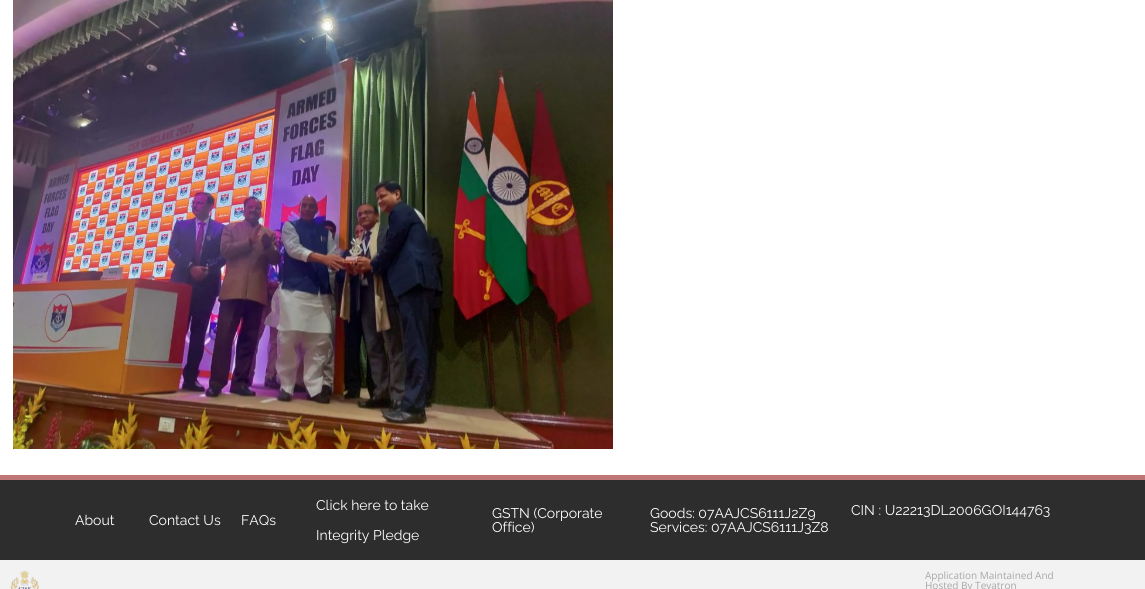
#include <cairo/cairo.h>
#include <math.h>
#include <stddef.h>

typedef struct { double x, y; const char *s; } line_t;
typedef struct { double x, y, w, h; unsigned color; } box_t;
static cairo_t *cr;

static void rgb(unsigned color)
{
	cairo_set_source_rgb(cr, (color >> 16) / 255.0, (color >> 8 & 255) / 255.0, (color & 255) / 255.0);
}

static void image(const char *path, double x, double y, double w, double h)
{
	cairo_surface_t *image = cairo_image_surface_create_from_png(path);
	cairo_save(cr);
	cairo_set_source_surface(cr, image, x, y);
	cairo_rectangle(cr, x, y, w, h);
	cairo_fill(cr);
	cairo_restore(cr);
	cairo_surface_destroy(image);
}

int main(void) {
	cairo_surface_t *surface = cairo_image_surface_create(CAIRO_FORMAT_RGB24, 1145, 589);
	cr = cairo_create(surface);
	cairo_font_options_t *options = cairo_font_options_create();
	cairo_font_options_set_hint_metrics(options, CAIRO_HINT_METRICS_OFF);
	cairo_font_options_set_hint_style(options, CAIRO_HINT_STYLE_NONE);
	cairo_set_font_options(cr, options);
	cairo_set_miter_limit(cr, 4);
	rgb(0xffffff);
	cairo_paint(cr);
	image("img/1.png", 13, 0, 600, 449);
	{
		static const box_t items[] = {
			{0, 480, 1145, 80, 0x2d2d2d},
			{0, 475, 1145, 5, 0xbf7775},
			{0, 560, 1145, 29, 0xf2f2f2},
		};
		for (size_t i = 0; i < sizeof items / sizeof *items; i++) {
			rgb(items[i].color);
			cairo_rectangle(cr, items[i].x, items[i].y, items[i].w, items[i].h);
			cairo_fill(cr);
		}
	}
	image("img/2.png", 10, 570, 29, 19);
	cairo_select_font_face(cr, "Raleway", CAIRO_FONT_SLANT_NORMAL, CAIRO_FONT_WEIGHT_NORMAL);
	cairo_set_font_size(cr, 14);
	rgb(0xffffff);
	{
		static const line_t items[] = {
			{75, 525, "About"},
			{149, 525, "Contact Us"},
			{241, 525, "FAQs"},
			{316, 510, "Click here to take"},
			{316, 540, "Integrity Pledge"},
			{492, 518, "GSTN (Corporate"},
			{492, 532, "Office)"},
			{650, 518, "Goods: 07AAJCS6111J2Z9"},
			{650, 532, "Services: 07AAJCS6111J3Z8"},
			{851, 515, "CIN : U22213DL2006GOI144763"},
		};
		for (size_t i = 0; i < sizeof items / sizeof *items; i++) {
			cairo_move_to(cr, items[i].x, items[i].y);
			cairo_show_text(cr, items[i].s);
		}
	}
	cairo_select_font_face(cr, "Open Sans", CAIRO_FONT_SLANT_NORMAL, CAIRO_FONT_WEIGHT_NORMAL);
	cairo_set_font_size(cr, 10);
	rgb(0xa7a7a7);
	cairo_move_to(cr, 925, 579);
	cairo_show_text(cr, "Application Maintained And");
	cairo_move_to(cr, 925, 589);
	cairo_show_text(cr, "Hosted By Tevatron");
	cairo_surface_write_to_png(surface, "page.png");
	cairo_font_options_destroy(options);
	cairo_destroy(cr);
	cairo_surface_destroy(surface);
	return 0;
}
